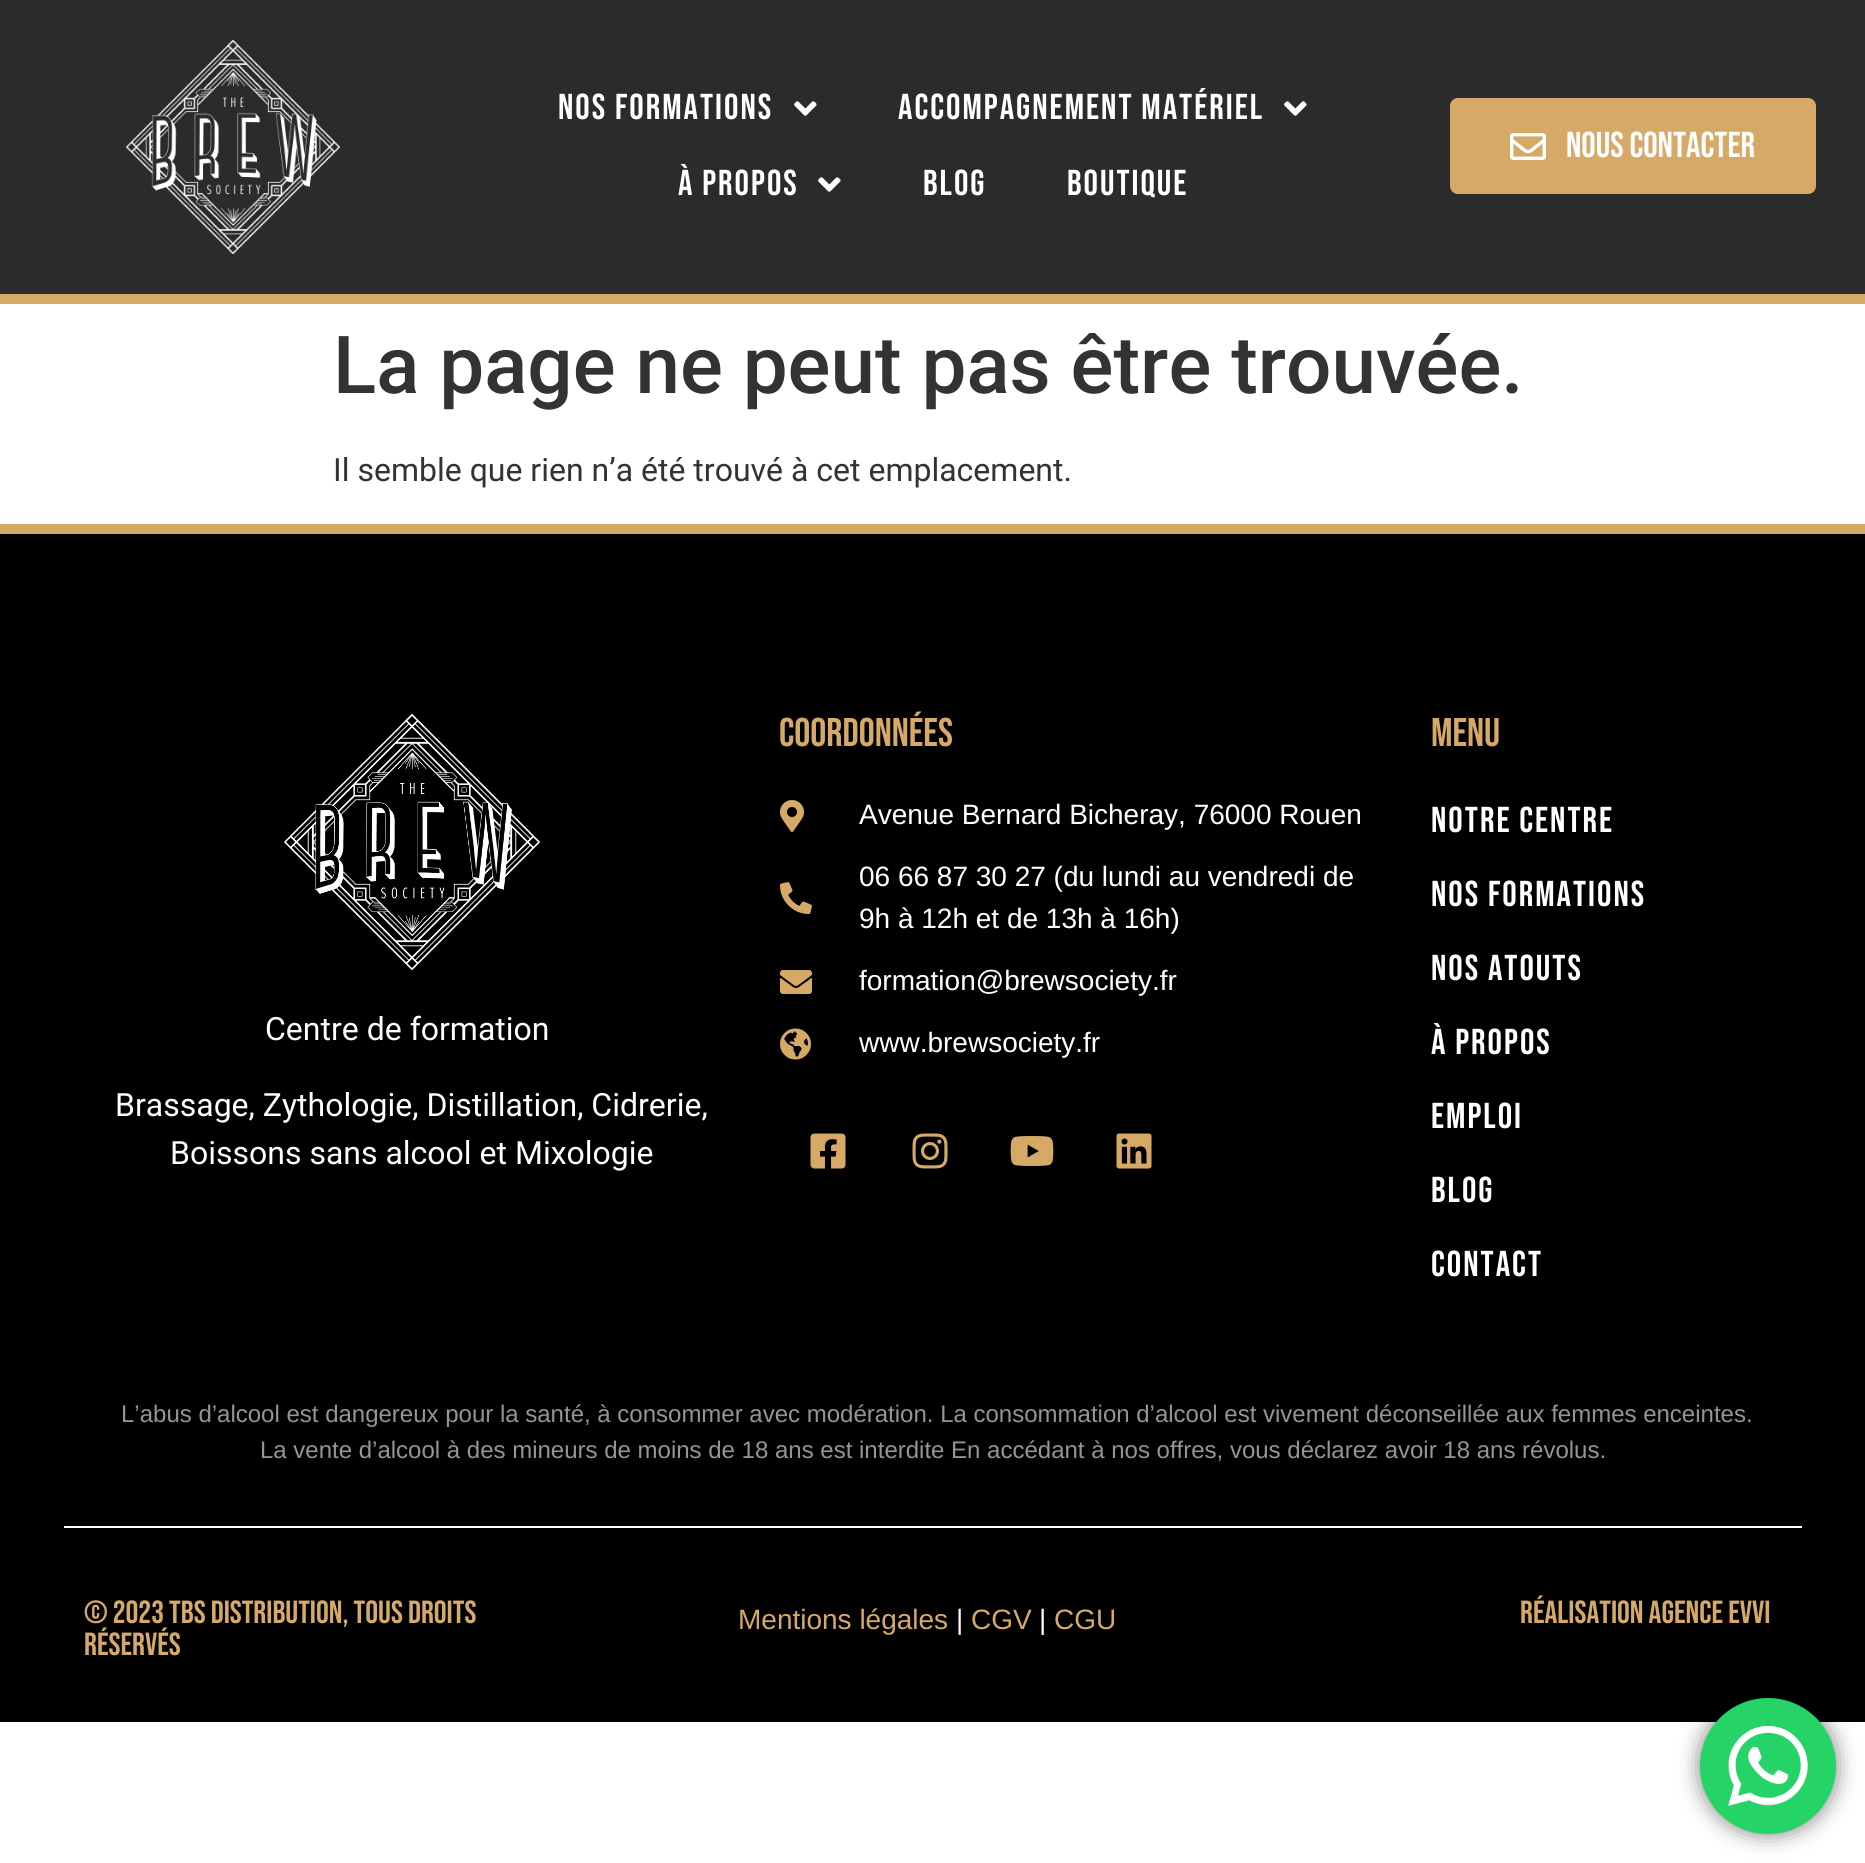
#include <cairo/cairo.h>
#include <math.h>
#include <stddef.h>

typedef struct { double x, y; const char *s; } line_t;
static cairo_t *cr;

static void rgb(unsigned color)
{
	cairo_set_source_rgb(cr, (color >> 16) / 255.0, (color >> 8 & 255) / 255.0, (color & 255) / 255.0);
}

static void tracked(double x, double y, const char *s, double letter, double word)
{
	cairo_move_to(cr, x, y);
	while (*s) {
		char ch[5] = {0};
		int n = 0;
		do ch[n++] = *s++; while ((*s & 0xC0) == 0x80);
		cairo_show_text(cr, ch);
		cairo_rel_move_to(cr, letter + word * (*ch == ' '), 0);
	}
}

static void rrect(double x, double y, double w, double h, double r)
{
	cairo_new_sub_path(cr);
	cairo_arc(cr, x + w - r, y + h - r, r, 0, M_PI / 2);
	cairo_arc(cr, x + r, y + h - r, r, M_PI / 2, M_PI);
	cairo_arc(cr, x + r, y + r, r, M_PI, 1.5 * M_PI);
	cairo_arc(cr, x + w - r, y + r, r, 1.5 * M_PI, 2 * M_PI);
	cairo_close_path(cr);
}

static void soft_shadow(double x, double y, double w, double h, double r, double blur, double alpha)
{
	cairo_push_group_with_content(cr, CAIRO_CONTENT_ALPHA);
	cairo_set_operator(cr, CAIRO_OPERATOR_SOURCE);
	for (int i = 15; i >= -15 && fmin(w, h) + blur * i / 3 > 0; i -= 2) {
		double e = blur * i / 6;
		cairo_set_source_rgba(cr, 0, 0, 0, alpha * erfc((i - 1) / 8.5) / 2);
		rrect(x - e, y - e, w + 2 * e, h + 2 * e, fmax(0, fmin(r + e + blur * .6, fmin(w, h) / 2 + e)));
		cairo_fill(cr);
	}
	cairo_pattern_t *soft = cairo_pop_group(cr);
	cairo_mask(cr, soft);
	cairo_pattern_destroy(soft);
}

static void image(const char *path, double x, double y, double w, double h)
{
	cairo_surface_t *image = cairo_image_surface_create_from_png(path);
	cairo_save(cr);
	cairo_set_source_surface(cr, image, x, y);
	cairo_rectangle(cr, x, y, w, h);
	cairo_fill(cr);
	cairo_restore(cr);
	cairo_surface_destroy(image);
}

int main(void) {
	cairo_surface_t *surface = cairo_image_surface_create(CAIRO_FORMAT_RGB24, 1865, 1863);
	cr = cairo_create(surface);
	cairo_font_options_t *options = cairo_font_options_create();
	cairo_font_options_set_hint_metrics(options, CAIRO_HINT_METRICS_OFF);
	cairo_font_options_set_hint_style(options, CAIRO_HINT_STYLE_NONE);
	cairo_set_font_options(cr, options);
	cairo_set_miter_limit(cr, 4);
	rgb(0xffffff);
	cairo_paint(cr);
	rgb(0x2b2b2b);
	cairo_rectangle(cr, 0, 0, 1865, 294);
	cairo_fill(cr);
	rgb(0xd7a967);
	cairo_rectangle(cr, 0, 294, 1865, 10);
	cairo_fill(cr);
	image("img/1.png", 126, 40, 214, 214);
	image("img/2.png", 794, 101, 23, 15);
	image("img/2.png", 1284, 101, 23, 15);
	image("img/2.png", 818, 177, 23, 15);
	rrect(1450, 98, 366, 96, 8);
	cairo_fill(cr);
	image("img/3.png", 1510, 133, 36, 27);
	rgb(0x000000);
	cairo_rectangle(cr, 0, 534, 1865, 1188);
	cairo_fill(cr);
	rgb(0xd7a967);
	cairo_rectangle(cr, 0, 524, 1865, 10);
	cairo_fill(cr);
	image("img/4.png", 284, 714, 256, 256);
	image("img/5.png", 780, 800, 24, 32);
	image("img/6.png", 780, 882, 32, 32);
	image("img/7.png", 780, 970, 32, 24);
	image("img/8.png", 780, 1028, 31, 32);
	image("img/9.png", 810, 1133, 36, 36);
	image("img/10.png", 912, 1133, 36, 36);
	image("img/11.png", 1010, 1136, 44, 30);
	image("img/12.png", 1116, 1133, 36, 36);
	rgb(0xffffff);
	cairo_rectangle(cr, 64, 1526, 1738, 2);
	cairo_fill(cr);
	rgb(0x000000);
	soft_shadow(1700, 1698, 136, 136, 68, 11, 0.5);
	rgb(0x25d366);
	cairo_arc(cr, 1768, 1766, 68, 0, 2 * M_PI);
	cairo_fill(cr);
	image("img/13.png", 1728, 1726, 80, 80);
	cairo_select_font_face(cr, "Bebas Neue", CAIRO_FONT_SLANT_NORMAL, CAIRO_FONT_WEIGHT_NORMAL);
	cairo_set_font_size(cr, 36);
	rgb(0xffffff);
	{
		static const line_t items[] = {
			{558, 119, "NOS FORMATIONS"},
			{898, 119, "ACCOMPAGNEMENT MATÉRIEL"},
			{678, 195, "À PROPOS"},
			{923, 195, "BLOG"},
			{1067, 195, "BOUTIQUE"},
		};
		for (size_t i = 0; i < sizeof items / sizeof *items; i++) {
			tracked(items[i].x, items[i].y, items[i].s, 2, 0);
		}
	}
	cairo_move_to(cr, 1566, 157);
	cairo_show_text(cr, "NOUS CONTACTER");
	cairo_select_font_face(cr, "Roboto Medium", CAIRO_FONT_SLANT_NORMAL, CAIRO_FONT_WEIGHT_NORMAL);
	cairo_set_font_size(cr, 80);
	rgb(0x333333);
	cairo_move_to(cr, 333, 393);
	cairo_show_text(cr, "La page ne peut pas être trouvée.");
	cairo_select_font_face(cr, "Roboto", CAIRO_FONT_SLANT_NORMAL, CAIRO_FONT_WEIGHT_NORMAL);
	cairo_set_font_size(cr, 32);
	cairo_move_to(cr, 333, 481);
	cairo_show_text(cr, "Il semble que rien n’a été trouvé à cet emplacement.");
	rgb(0xffffff);
	{
		static const line_t items[] = {
			{265, 1040, "Centre de formation"},
			{115, 1116, "Brassage, Zythologie, Distillation, Cidrerie,"},
			{170, 1164, "Boissons sans alcool et Mixologie"},
		};
		for (size_t i = 0; i < sizeof items / sizeof *items; i++) {
			cairo_move_to(cr, items[i].x, items[i].y);
			cairo_show_text(cr, items[i].s);
		}
	}
	cairo_select_font_face(cr, "Bebas Neue", CAIRO_FONT_SLANT_NORMAL, CAIRO_FONT_WEIGHT_NORMAL);
	cairo_set_font_size(cr, 40);
	rgb(0xd7a967);
	cairo_move_to(cr, 779, 746);
	cairo_show_text(cr, "Coordonnées");
	cairo_select_font_face(cr, "Arimo", CAIRO_FONT_SLANT_NORMAL, CAIRO_FONT_WEIGHT_NORMAL);
	cairo_set_font_size(cr, 28);
	rgb(0xffffff);
	{
		static const line_t items[] = {
			{859, 824, "Avenue Bernard Bicheray, 76000 Rouen"},
			{859, 886, "06 66 87 30 27 (du lundi au vendredi de"},
			{859, 928, "9h à 12h et de 13h à 16h)"},
			{859, 990, "formation@brewsociety.fr"},
			{859, 1052, "www.brewsociety.fr"},
		};
		for (size_t i = 0; i < sizeof items / sizeof *items; i++) {
			cairo_move_to(cr, items[i].x, items[i].y);
			cairo_show_text(cr, items[i].s);
		}
	}
	cairo_select_font_face(cr, "Bebas Neue", CAIRO_FONT_SLANT_NORMAL, CAIRO_FONT_WEIGHT_NORMAL);
	cairo_set_font_size(cr, 40);
	rgb(0xd7a967);
	cairo_move_to(cr, 1431, 746);
	cairo_show_text(cr, "Menu");
	cairo_set_font_size(cr, 36);
	rgb(0xffffff);
	{
		static const line_t items[] = {
			{1431, 832, "Notre Centre"},
			{1431, 906, "Nos formations"},
			{1431, 980, "Nos atouts"},
			{1431, 1054, "à propos"},
			{1431, 1128, "emploi"},
			{1431, 1202, "Blog"},
			{1431, 1276, "Contact"},
		};
		for (size_t i = 0; i < sizeof items / sizeof *items; i++) {
			tracked(items[i].x, items[i].y, items[i].s, 2, 0);
		}
	}
	cairo_select_font_face(cr, "Arimo", CAIRO_FONT_SLANT_NORMAL, CAIRO_FONT_WEIGHT_NORMAL);
	cairo_set_font_size(cr, 24);
	rgb(0x959595);
	cairo_move_to(cr, 121, 1422);
	cairo_show_text(cr, "L’abus d’alcool est dangereux pour la santé, à consommer avec modération. La consommation d’alcool est vivement déconseillée aux femmes enceintes.");
	cairo_move_to(cr, 260, 1458);
	cairo_show_text(cr, "La vente d’alcool à des mineurs de moins de 18 ans est interdite En accédant à nos offres, vous déclarez avoir 18 ans révolus.");
	cairo_select_font_face(cr, "Bebas Neue", CAIRO_FONT_SLANT_NORMAL, CAIRO_FONT_WEIGHT_NORMAL);
	cairo_set_font_size(cr, 32);
	rgb(0xd7a967);
	cairo_move_to(cr, 84, 1623);
	cairo_show_text(cr, "© 2023 TBS Distribution, tous droits");
	cairo_move_to(cr, 84, 1655);
	cairo_show_text(cr, "réservés");
	cairo_select_font_face(cr, "Arimo", CAIRO_FONT_SLANT_NORMAL, CAIRO_FONT_WEIGHT_NORMAL);
	cairo_set_font_size(cr, 28);
	cairo_move_to(cr, 738, 1629);
	cairo_show_text(cr, "Mentions légales");
	rgb(0xffffff);
	cairo_move_to(cr, 956, 1629);
	cairo_show_text(cr, "|");
	rgb(0xd7a967);
	cairo_move_to(cr, 971, 1629);
	cairo_show_text(cr, "CGV");
	rgb(0xffffff);
	cairo_move_to(cr, 1039, 1629);
	cairo_show_text(cr, "|");
	rgb(0xd7a967);
	cairo_move_to(cr, 1054, 1629);
	cairo_show_text(cr, "CGU");
	cairo_select_font_face(cr, "Bebas Neue", CAIRO_FONT_SLANT_NORMAL, CAIRO_FONT_WEIGHT_NORMAL);
	cairo_set_font_size(cr, 32);
	cairo_move_to(cr, 1520, 1623);
	cairo_show_text(cr, "Réalisation Agence Evvi");
	cairo_surface_write_to_png(surface, "page.png");
	cairo_font_options_destroy(options);
	cairo_destroy(cr);
	cairo_surface_destroy(surface);
	return 0;
}
